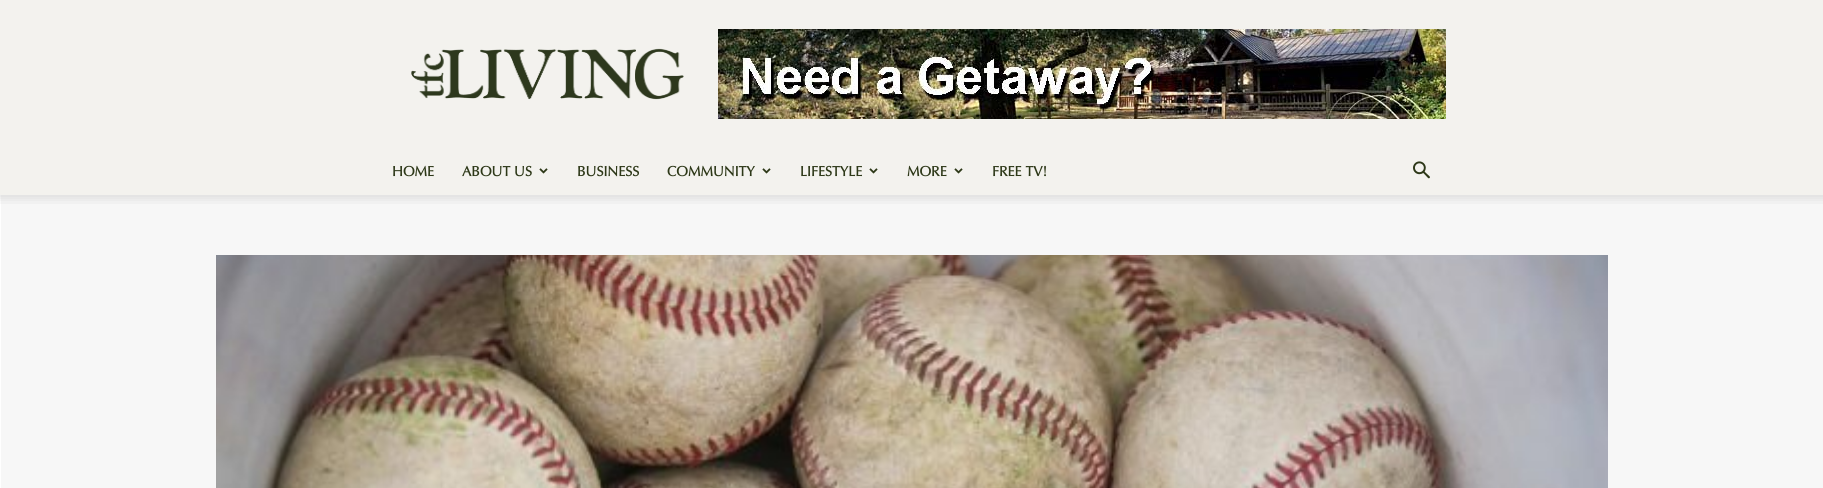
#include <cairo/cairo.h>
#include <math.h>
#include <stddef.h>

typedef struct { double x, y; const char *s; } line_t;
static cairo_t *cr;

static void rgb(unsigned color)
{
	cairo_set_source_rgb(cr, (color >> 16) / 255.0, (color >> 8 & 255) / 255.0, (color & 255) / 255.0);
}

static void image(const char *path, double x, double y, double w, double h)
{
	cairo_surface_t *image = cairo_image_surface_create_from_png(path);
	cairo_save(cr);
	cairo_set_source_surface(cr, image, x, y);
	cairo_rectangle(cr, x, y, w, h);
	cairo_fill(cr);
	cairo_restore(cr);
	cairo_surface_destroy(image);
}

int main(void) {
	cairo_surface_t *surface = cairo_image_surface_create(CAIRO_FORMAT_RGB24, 1823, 488);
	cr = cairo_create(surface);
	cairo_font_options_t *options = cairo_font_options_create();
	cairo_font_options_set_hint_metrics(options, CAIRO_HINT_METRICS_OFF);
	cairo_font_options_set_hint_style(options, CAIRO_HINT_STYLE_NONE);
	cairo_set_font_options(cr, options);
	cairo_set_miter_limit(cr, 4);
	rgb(0xffffff);
	cairo_paint(cr);
	rgb(0xf3f2ee);
	cairo_rectangle(cr, 0, 0, 1823, 195);
	cairo_fill(cr);
	image("img/1.png", 411, 48, 273, 52);
	image("img/2.png", 718, 29, 728, 90);
	image("img/3.png", 539, 168, 9, 6);
	image("img/3.png", 762, 168, 9, 6);
	image("img/3.png", 869, 168, 9, 6);
	image("img/3.png", 954, 168, 9, 6);
	image("img/4.png", 1413, 161, 17, 18);
	rgb(0xf7f7f7);
	cairo_rectangle(cr, 1, 195, 1822, 293);
	cairo_fill(cr);
	image("img/5.png", 0, 195, 1823, 9);
	image("img/6.png", 216, 255, 1392, 233);
	cairo_select_font_face(cr, "Optima", CAIRO_FONT_SLANT_NORMAL, CAIRO_FONT_WEIGHT_BOLD);
	cairo_set_font_size(cr, 14);
	rgb(0x2d3818);
	{
		static const line_t items[] = {
			{392, 176, "HOME"},
			{462, 176, "ABOUT US"},
			{577, 176, "BUSINESS"},
			{667, 176, "COMMUNITY"},
			{800, 176, "LIFESTYLE"},
			{907, 176, "MORE"},
			{992, 176, "FREE TV!"},
		};
		for (size_t i = 0; i < sizeof items / sizeof *items; i++) {
			cairo_move_to(cr, items[i].x, items[i].y);
			cairo_show_text(cr, items[i].s);
		}
	}
	cairo_surface_write_to_png(surface, "page.png");
	cairo_font_options_destroy(options);
	cairo_destroy(cr);
	cairo_surface_destroy(surface);
	return 0;
}
